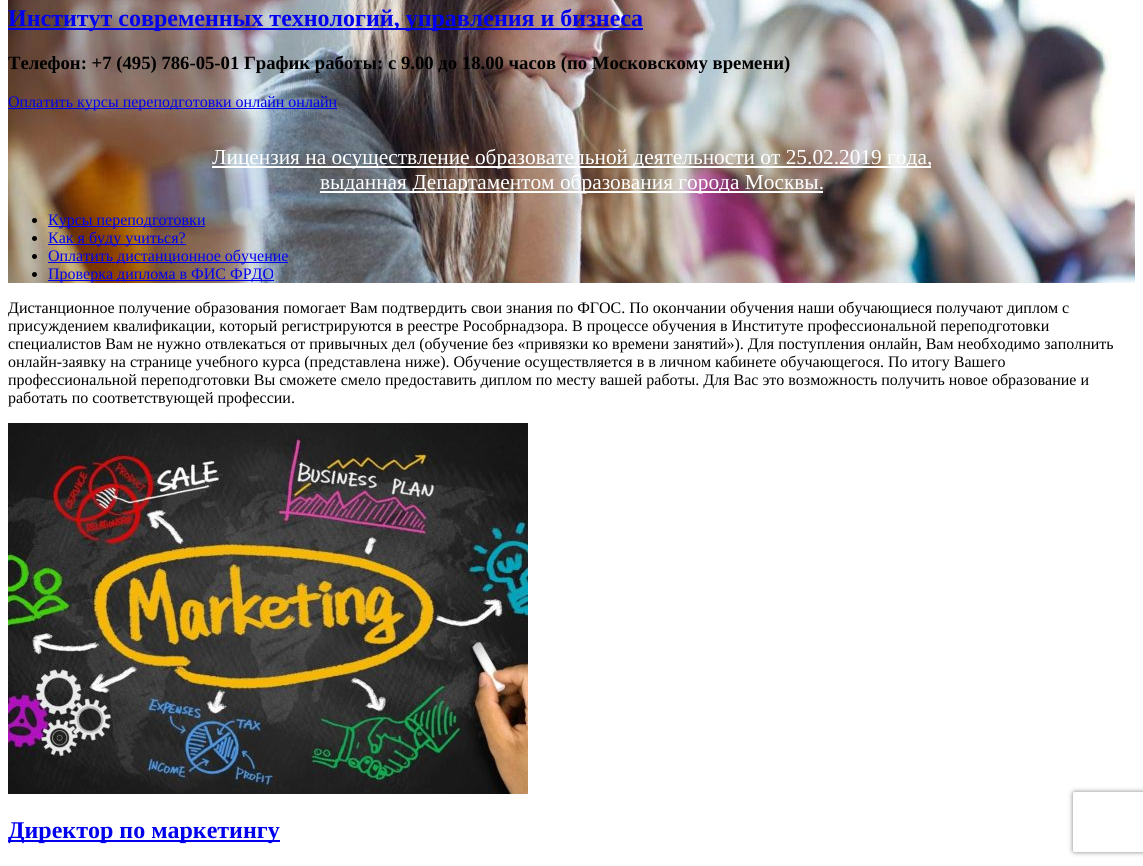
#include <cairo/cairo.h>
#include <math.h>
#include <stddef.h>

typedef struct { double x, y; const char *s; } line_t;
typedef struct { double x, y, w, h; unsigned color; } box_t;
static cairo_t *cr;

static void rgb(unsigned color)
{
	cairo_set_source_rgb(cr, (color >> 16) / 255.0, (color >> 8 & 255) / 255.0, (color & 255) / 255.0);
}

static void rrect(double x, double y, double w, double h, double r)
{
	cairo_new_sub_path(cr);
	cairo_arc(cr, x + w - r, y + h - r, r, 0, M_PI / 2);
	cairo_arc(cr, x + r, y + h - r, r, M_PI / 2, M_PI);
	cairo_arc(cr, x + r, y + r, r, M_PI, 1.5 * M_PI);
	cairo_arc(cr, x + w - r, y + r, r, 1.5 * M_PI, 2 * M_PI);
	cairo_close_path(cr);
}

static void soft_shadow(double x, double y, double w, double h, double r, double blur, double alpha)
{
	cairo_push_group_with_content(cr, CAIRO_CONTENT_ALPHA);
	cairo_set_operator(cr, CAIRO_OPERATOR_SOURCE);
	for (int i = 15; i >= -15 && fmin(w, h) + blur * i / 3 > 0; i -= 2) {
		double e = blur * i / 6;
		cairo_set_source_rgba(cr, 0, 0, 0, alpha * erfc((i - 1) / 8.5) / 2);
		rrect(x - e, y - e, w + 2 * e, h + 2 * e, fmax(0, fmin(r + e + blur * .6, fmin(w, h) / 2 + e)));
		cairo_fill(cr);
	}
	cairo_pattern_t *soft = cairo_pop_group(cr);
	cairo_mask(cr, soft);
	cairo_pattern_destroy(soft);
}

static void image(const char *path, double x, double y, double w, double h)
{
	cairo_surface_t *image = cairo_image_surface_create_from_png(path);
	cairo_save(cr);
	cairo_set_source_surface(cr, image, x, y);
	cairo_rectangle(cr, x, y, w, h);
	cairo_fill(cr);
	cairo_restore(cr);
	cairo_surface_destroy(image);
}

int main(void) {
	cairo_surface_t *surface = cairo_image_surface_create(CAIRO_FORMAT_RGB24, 1143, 866);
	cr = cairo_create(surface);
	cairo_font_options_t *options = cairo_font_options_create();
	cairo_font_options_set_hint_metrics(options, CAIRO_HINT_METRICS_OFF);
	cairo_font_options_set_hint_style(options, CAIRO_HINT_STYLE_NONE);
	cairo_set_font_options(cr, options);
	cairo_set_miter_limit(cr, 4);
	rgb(0xffffff);
	cairo_paint(cr);
	image("img/1.png", 8, 0, 1127, 283);
	{
		static const box_t items[] = {
			{8, 28, 635, 2, 0x0000ee},
			{8, 108, 329, 1, 0x0000ee},
			{212, 166, 719, 2, 0xffffff},
			{320, 191, 503, 2, 0xffffff},
		};
		for (size_t i = 0; i < sizeof items / sizeof *items; i++) {
			rgb(items[i].color);
			cairo_rectangle(cr, items[i].x, items[i].y, items[i].w, items[i].h);
			cairo_fill(cr);
		}
	}
	rgb(0x000000);
	cairo_arc(cr, 34.5, 220.5, 2.5, 0, 2 * M_PI);
	cairo_fill(cr);
	rgb(0x0000ee);
	cairo_rectangle(cr, 48, 226, 157, 1);
	cairo_fill(cr);
	rgb(0x000000);
	cairo_arc(cr, 34.5, 238.5, 2.5, 0, 2 * M_PI);
	cairo_fill(cr);
	rgb(0x0000ee);
	cairo_rectangle(cr, 48, 244, 138, 1);
	cairo_fill(cr);
	rgb(0x000000);
	cairo_arc(cr, 34.5, 256.5, 2.5, 0, 2 * M_PI);
	cairo_fill(cr);
	rgb(0x0000ee);
	cairo_rectangle(cr, 48, 262, 240, 1);
	cairo_fill(cr);
	rgb(0x000000);
	cairo_arc(cr, 34.5, 274.5, 2.5, 0, 2 * M_PI);
	cairo_fill(cr);
	rgb(0x0000ee);
	cairo_rectangle(cr, 48, 280, 226, 1);
	cairo_fill(cr);
	image("img/2.png", 8, 423, 520, 371);
	cairo_rectangle(cr, 8, 840, 272, 2);
	cairo_fill(cr);
	cairo_save(cr);
	cairo_set_fill_rule(cr, CAIRO_FILL_RULE_EVEN_ODD);
	cairo_new_path(cr);
	cairo_move_to(cr, 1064, 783);
	cairo_line_to(cr, 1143, 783);
	cairo_line_to(cr, 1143, 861);
	cairo_line_to(cr, 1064, 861);
	cairo_close_path(cr);
	cairo_move_to(cr, 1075, 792);
	cairo_line_to(cr, 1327, 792);
	cairo_curve_to(cr, 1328, 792, 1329, 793, 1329, 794);
	cairo_line_to(cr, 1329, 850);
	cairo_curve_to(cr, 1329, 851, 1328, 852, 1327, 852);
	cairo_line_to(cr, 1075, 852);
	cairo_curve_to(cr, 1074, 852, 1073, 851, 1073, 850);
	cairo_line_to(cr, 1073, 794);
	cairo_curve_to(cr, 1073, 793, 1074, 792, 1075, 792);
	cairo_close_path(cr);
	cairo_clip(cr);
	rgb(0x808080);
	soft_shadow(1073, 792, 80, 60, 2, 2.5, 1);
	cairo_restore(cr);
	cairo_select_font_face(cr, "Liberation Serif", CAIRO_FONT_SLANT_NORMAL, CAIRO_FONT_WEIGHT_BOLD);
	cairo_set_font_size(cr, 24);
	cairo_move_to(cr, 8, 26);
	cairo_show_text(cr, "Институт современных технологий, управления и бизнеса");
	cairo_set_font_size(cr, 18.7);
	rgb(0x000000);
	cairo_move_to(cr, 8, 69);
	cairo_show_text(cr, "Телефон: +7 (495) 786-05-01 График работы: с 9.00 до 18.00 часов (по Московскому времени)");
	cairo_select_font_face(cr, "Liberation Serif", CAIRO_FONT_SLANT_NORMAL, CAIRO_FONT_WEIGHT_NORMAL);
	cairo_set_font_size(cr, 16);
	rgb(0x0000ee);
	cairo_move_to(cr, 8, 107);
	cairo_show_text(cr, "Оплатить курсы переподготовки онлайн онлайн");
	cairo_set_font_size(cr, 21.35);
	rgb(0xffffff);
	cairo_move_to(cr, 212, 164);
	cairo_show_text(cr, "Лицензия на осуществление образовательной деятельности от 25.02.2019 года,");
	cairo_move_to(cr, 320, 189);
	cairo_show_text(cr, "выданная Департаментом образования города Москвы.");
	cairo_set_font_size(cr, 16);
	rgb(0x0000ee);
	{
		static const line_t items[] = {
			{48, 225, "Курсы переподготовки"},
			{48, 243, "Как я буду учиться?"},
			{48, 261, "Оплатить дистанционное обучение"},
			{48, 279, "Проверка диплома в ФИС ФРДО"},
		};
		for (size_t i = 0; i < sizeof items / sizeof *items; i++) {
			cairo_move_to(cr, items[i].x, items[i].y);
			cairo_show_text(cr, items[i].s);
		}
	}
	rgb(0x000000);
	{
		static const line_t items[] = {
			{8, 313, "Дистанционное получение образования помогает Вам подтвердить свои знания по ФГОС. По окончании обучения наши обучающиеся получают диплом с"},
			{8, 331, "присуждением квалификации, который регистрируются в реестре Рособрнадзора. В процессе обучения в Институте профессиональной переподготовки"},
			{8, 349, "специалистов Вам не нужно отвлекаться от привычных дел (обучение без «привязки ко времени занятий»). Для поступления онлайн, Вам необходимо заполнить"},
			{8, 367, "онлайн-заявку на странице учебного курса (представлена ниже). Обучение осуществляется в в личном кабинете обучающегося. По итогу Вашего"},
			{8, 385, "профессиональной переподготовки Вы сможете смело предоставить диплом по месту вашей работы. Для Вас это возможность получить новое образование и"},
			{8, 403, "работать по соответствующей профессии."},
		};
		for (size_t i = 0; i < sizeof items / sizeof *items; i++) {
			cairo_move_to(cr, items[i].x, items[i].y);
			cairo_show_text(cr, items[i].s);
		}
	}
	cairo_select_font_face(cr, "Liberation Serif", CAIRO_FONT_SLANT_NORMAL, CAIRO_FONT_WEIGHT_BOLD);
	cairo_set_font_size(cr, 24);
	rgb(0x0000ee);
	cairo_move_to(cr, 8, 838);
	cairo_show_text(cr, "Директор по маркетингу");
	cairo_surface_write_to_png(surface, "page.png");
	cairo_font_options_destroy(options);
	cairo_destroy(cr);
	cairo_surface_destroy(surface);
	return 0;
}
